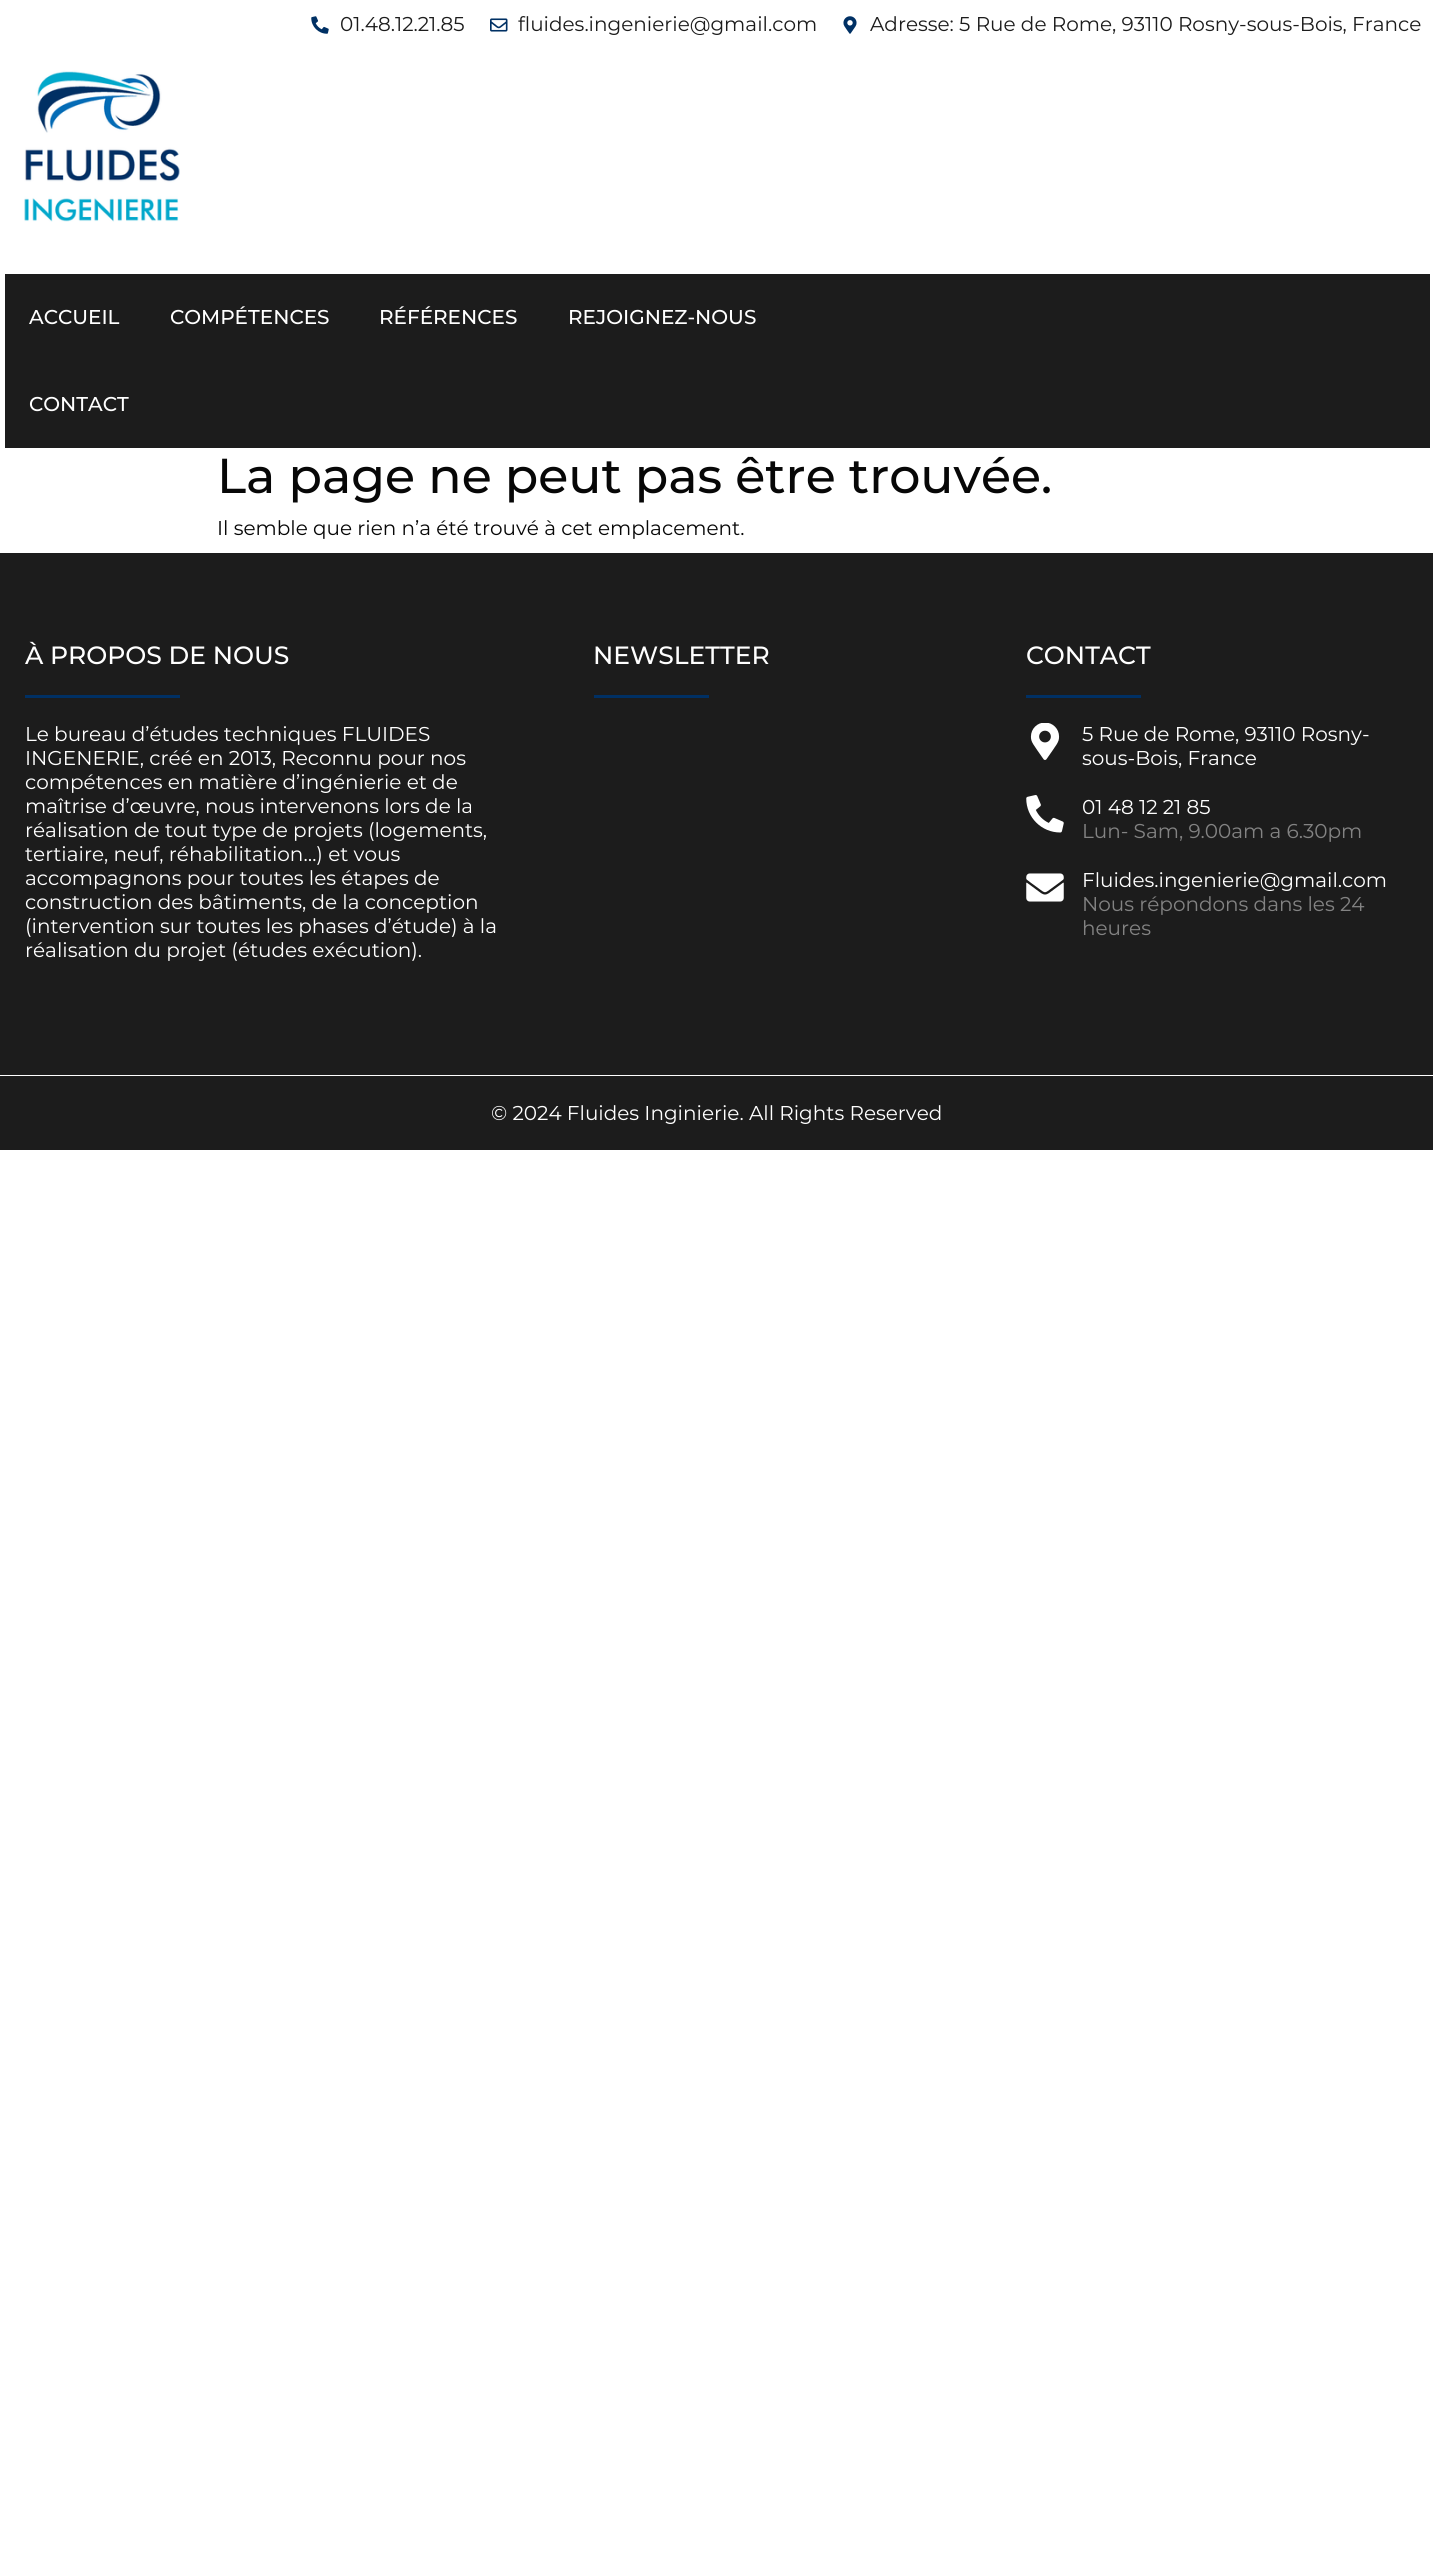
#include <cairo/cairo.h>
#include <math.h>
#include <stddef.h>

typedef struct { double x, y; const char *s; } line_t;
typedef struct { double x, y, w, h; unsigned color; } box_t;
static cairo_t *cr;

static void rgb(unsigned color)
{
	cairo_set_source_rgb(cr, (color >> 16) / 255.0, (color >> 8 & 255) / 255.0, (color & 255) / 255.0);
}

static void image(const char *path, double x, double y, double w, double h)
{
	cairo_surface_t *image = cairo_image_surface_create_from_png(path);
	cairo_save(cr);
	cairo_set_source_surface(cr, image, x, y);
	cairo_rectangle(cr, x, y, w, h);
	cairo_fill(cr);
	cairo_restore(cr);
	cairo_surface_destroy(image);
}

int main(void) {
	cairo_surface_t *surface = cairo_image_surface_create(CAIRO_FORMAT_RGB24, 1433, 2564);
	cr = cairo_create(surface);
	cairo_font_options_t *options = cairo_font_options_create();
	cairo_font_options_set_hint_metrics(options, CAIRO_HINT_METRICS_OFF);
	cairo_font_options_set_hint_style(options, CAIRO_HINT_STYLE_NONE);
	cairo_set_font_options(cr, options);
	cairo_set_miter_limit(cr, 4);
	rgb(0xffffff);
	cairo_paint(cr);
	image("img/1.png", 311, 16, 18, 18);
	image("img/2.png", 490, 18, 18, 14);
	image("img/3.png", 843, 16, 14, 18);
	image("img/4.png", 24, 70, 156, 152);
	{
		static const box_t items[] = {
			{5, 274, 1425, 174, 0x1c1c1c},
			{0, 553, 1433, 597, 0x1c1c1c},
			{25, 695, 155, 3, 0x003064},
			{594, 695, 115, 3, 0x003064},
			{1026, 695, 115, 3, 0x003064},
		};
		for (size_t i = 0; i < sizeof items / sizeof *items; i++) {
			rgb(items[i].color);
			cairo_rectangle(cr, items[i].x, items[i].y, items[i].w, items[i].h);
			cairo_fill(cr);
		}
	}
	image("img/5.png", 1030, 723, 30, 37);
	image("img/6.png", 1026, 795, 38, 38);
	image("img/7.png", 1026, 873, 38, 29);
	rgb(0xffffff);
	cairo_rectangle(cr, 0, 1075, 1433, 1);
	cairo_fill(cr);
	cairo_select_font_face(cr, "Montserrat", CAIRO_FONT_SLANT_NORMAL, CAIRO_FONT_WEIGHT_NORMAL);
	cairo_set_font_size(cr, 20);
	rgb(0x1c1c1c);
	{
		static const line_t items[] = {
			{340, 31, "01.48.12.21.85"},
			{518, 31, "fluides.ingenierie@gmail.com"},
			{870, 31, "Adresse: 5 Rue de Rome, 93110 Rosny-sous-Bois, France"},
		};
		for (size_t i = 0; i < sizeof items / sizeof *items; i++) {
			cairo_move_to(cr, items[i].x, items[i].y);
			cairo_show_text(cr, items[i].s);
		}
	}
	cairo_select_font_face(cr, "Montserrat Medium", CAIRO_FONT_SLANT_NORMAL, CAIRO_FONT_WEIGHT_NORMAL);
	rgb(0xffffff);
	{
		static const line_t items[] = {
			{29, 324, "ACCUEIL"},
			{170, 324, "COMPÉTENCES"},
			{379, 324, "RÉFÉRENCES"},
			{568, 324, "REJOIGNEZ-NOUS"},
			{29, 411, "CONTACT"},
		};
		for (size_t i = 0; i < sizeof items / sizeof *items; i++) {
			cairo_move_to(cr, items[i].x, items[i].y);
			cairo_show_text(cr, items[i].s);
		}
	}
	cairo_set_font_size(cr, 49);
	rgb(0x070707);
	cairo_move_to(cr, 217, 493);
	cairo_show_text(cr, "La page ne peut pas être trouvée.");
	cairo_select_font_face(cr, "Montserrat", CAIRO_FONT_SLANT_NORMAL, CAIRO_FONT_WEIGHT_NORMAL);
	cairo_set_font_size(cr, 20);
	cairo_move_to(cr, 217, 535);
	cairo_show_text(cr, "Il semble que rien n’a été trouvé à cet emplacement.");
	cairo_select_font_face(cr, "Montserrat Medium", CAIRO_FONT_SLANT_NORMAL, CAIRO_FONT_WEIGHT_NORMAL);
	cairo_set_font_size(cr, 25);
	rgb(0xffffff);
	cairo_move_to(cr, 25, 664);
	cairo_show_text(cr, "À PROPOS DE NOUS");
	cairo_select_font_face(cr, "Montserrat", CAIRO_FONT_SLANT_NORMAL, CAIRO_FONT_WEIGHT_NORMAL);
	cairo_set_font_size(cr, 20);
	{
		static const line_t items[] = {
			{25, 741, "Le bureau d’études techniques FLUIDES"},
			{25, 765, "INGENERIE, créé en 2013, Reconnu pour nos"},
			{25, 789, "compétences en matière d’ingénierie et de"},
			{25, 813, "maîtrise d’œuvre, nous intervenons lors de la"},
			{25, 837, "réalisation de tout type de projets (logements,"},
			{25, 861, "tertiaire, neuf, réhabilitation…) et vous"},
			{25, 885, "accompagnons pour toutes les étapes de"},
			{25, 909, "construction des bâtiments, de la conception"},
			{25, 933, "(intervention sur toutes les phases d’étude) à la"},
			{25, 957, "réalisation du projet (études exécution)."},
		};
		for (size_t i = 0; i < sizeof items / sizeof *items; i++) {
			cairo_move_to(cr, items[i].x, items[i].y);
			cairo_show_text(cr, items[i].s);
		}
	}
	cairo_select_font_face(cr, "Montserrat Medium", CAIRO_FONT_SLANT_NORMAL, CAIRO_FONT_WEIGHT_NORMAL);
	cairo_set_font_size(cr, 25);
	cairo_move_to(cr, 593, 664);
	cairo_show_text(cr, "NEWSLETTER");
	cairo_move_to(cr, 1026, 664);
	cairo_show_text(cr, "CONTACT");
	cairo_select_font_face(cr, "Montserrat", CAIRO_FONT_SLANT_NORMAL, CAIRO_FONT_WEIGHT_NORMAL);
	cairo_set_font_size(cr, 20);
	{
		static const line_t items[] = {
			{1082, 741, "5 Rue de Rome, 93110 Rosny-"},
			{1082, 765, "sous-Bois, France"},
			{1082, 814, "01 48 12 21 85"},
		};
		for (size_t i = 0; i < sizeof items / sizeof *items; i++) {
			cairo_move_to(cr, items[i].x, items[i].y);
			cairo_show_text(cr, items[i].s);
		}
	}
	rgb(0x838383);
	cairo_move_to(cr, 1082, 838);
	cairo_show_text(cr, "Lun- Sam, 9.00am a 6.30pm");
	rgb(0xffffff);
	cairo_move_to(cr, 1082, 887);
	cairo_show_text(cr, "Fluides.ingenierie@gmail.com");
	rgb(0x838383);
	cairo_move_to(cr, 1082, 911);
	cairo_show_text(cr, "Nous répondons dans les 24");
	cairo_move_to(cr, 1082, 935);
	cairo_show_text(cr, "heures");
	rgb(0xffffff);
	cairo_move_to(cr, 491, 1120);
	cairo_show_text(cr, "© 2024 Fluides Inginierie. All Rights Reserved");
	cairo_surface_write_to_png(surface, "page.png");
	cairo_font_options_destroy(options);
	cairo_destroy(cr);
	cairo_surface_destroy(surface);
	return 0;
}
